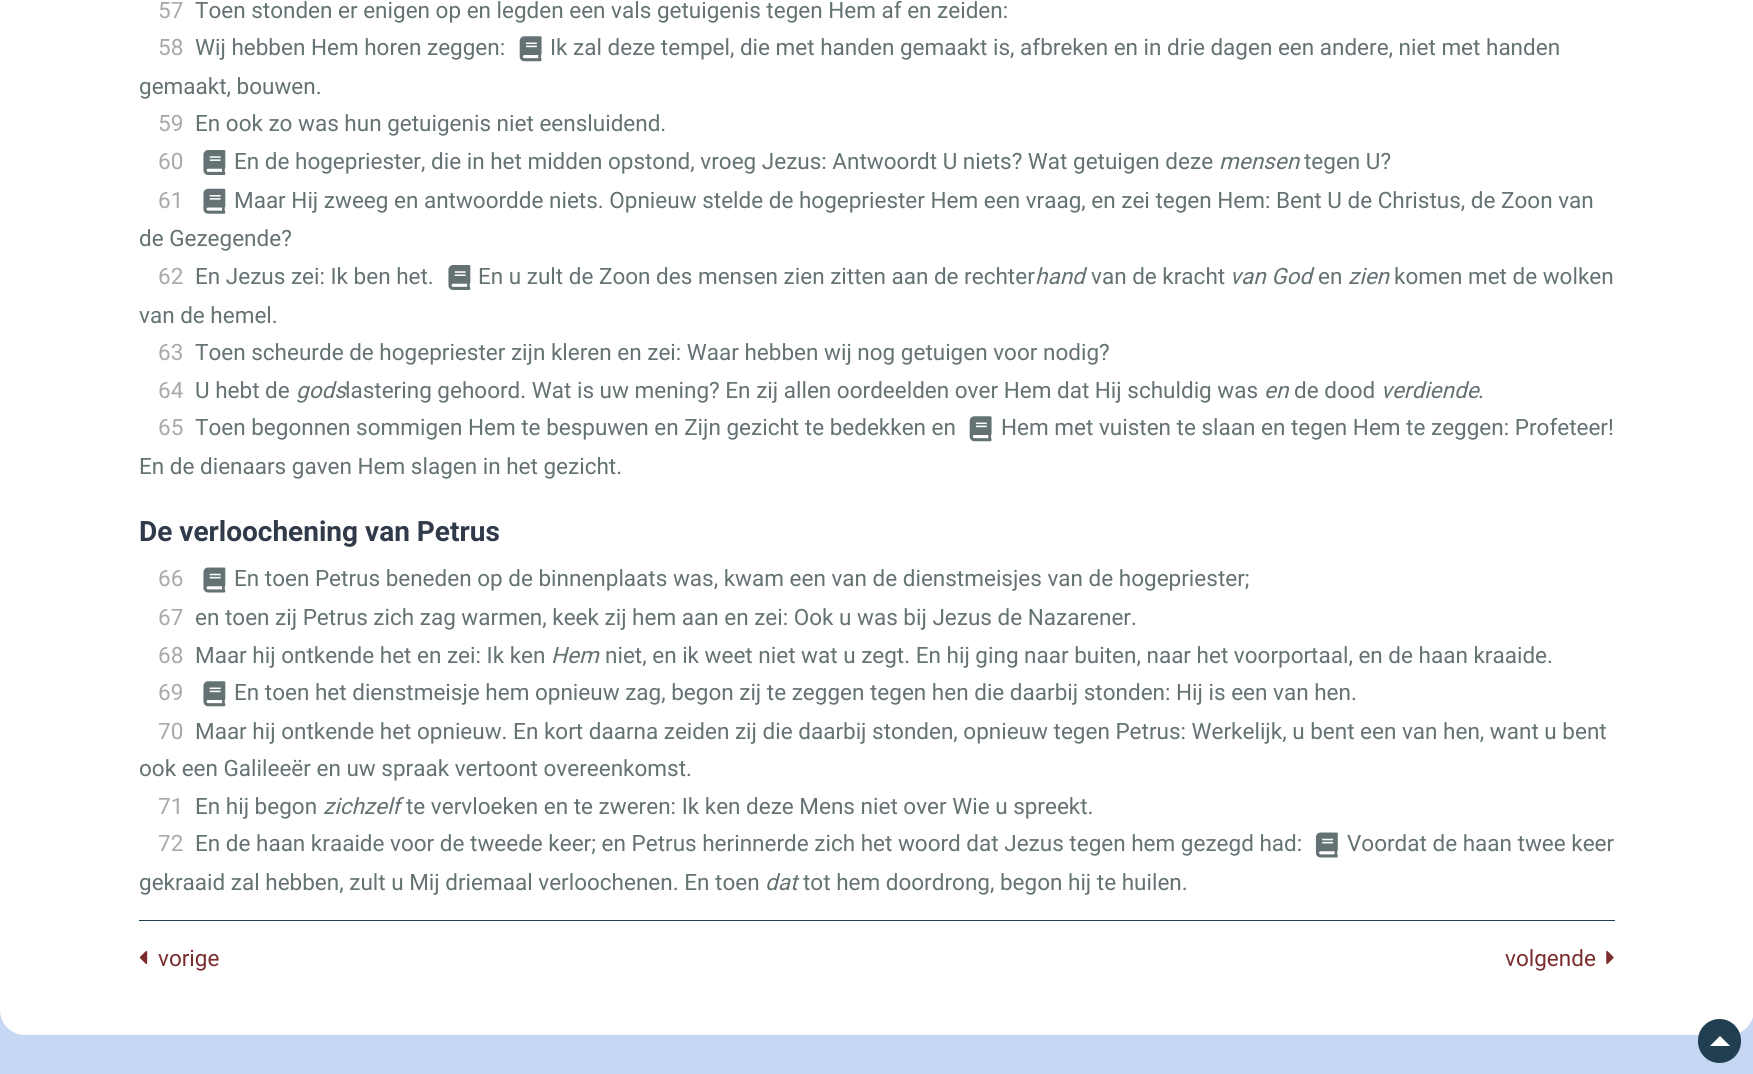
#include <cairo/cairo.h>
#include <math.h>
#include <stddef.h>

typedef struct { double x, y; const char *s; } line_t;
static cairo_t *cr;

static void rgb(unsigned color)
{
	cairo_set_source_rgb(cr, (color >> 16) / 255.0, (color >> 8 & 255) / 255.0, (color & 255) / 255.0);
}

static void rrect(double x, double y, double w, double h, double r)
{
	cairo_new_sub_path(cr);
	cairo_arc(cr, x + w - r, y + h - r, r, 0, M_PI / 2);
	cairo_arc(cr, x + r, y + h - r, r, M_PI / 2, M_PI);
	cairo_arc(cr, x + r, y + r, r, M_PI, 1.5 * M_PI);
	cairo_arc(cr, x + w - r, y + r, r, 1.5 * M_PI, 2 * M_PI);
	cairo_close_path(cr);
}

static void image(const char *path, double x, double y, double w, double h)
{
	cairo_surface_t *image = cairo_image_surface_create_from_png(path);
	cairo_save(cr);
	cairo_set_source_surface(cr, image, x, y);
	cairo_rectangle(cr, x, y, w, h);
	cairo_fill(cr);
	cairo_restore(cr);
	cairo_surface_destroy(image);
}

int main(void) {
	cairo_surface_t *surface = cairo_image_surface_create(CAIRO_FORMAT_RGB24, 1753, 1074);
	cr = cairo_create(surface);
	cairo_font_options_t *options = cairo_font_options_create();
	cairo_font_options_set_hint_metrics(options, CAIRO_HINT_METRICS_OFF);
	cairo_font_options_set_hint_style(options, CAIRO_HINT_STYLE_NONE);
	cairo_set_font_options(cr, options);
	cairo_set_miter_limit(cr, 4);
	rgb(0xc6d7f3);
	cairo_paint(cr);
	rgb(0xffffff);
	rrect(0, -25, 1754, 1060, 25);
	cairo_fill(cr);
	image("img/1.png", 519, 36, 23, 26);
	image("img/2.png", 203, 150, 23, 25);
	image("img/3.png", 203, 188, 23, 26);
	image("img/2.png", 448, 265, 23, 25);
	image("img/1.png", 969, 416, 23, 26);
	image("img/4.png", 203, 567, 23, 26);
	image("img/5.png", 203, 681, 23, 26);
	image("img/6.png", 1315, 832, 23, 26);
	rgb(0x213f50);
	cairo_rectangle(cr, 139, 920, 1476, 1);
	cairo_fill(cr);
	image("img/7.png", 139, 951, 9, 13);
	image("img/8.png", 1606, 951, 8, 13);
	rrect(1698, 1019, 43, 44, 21.5);
	cairo_fill(cr);
	rgb(0xffffff);
	cairo_new_path(cr);
	cairo_move_to(cr, 1730, 1046);
	cairo_line_to(cr, 1710, 1046);
	cairo_line_to(cr, 1720, 1036);
	cairo_close_path(cr);
	cairo_fill(cr);
	cairo_select_font_face(cr, "Roboto", CAIRO_FONT_SLANT_NORMAL, CAIRO_FONT_WEIGHT_NORMAL);
	cairo_set_font_size(cr, 22.5);
	rgb(0xa9a9a9);
	cairo_move_to(cr, 158, 18);
	cairo_show_text(cr, "57");
	rgb(0x647273);
	cairo_move_to(cr, 195, 18);
	cairo_show_text(cr, "Toen stonden er enigen op en legden een vals getuigenis tegen Hem af en zeiden:");
	rgb(0xa9a9a9);
	cairo_move_to(cr, 158, 55);
	cairo_show_text(cr, "58");
	rgb(0x647273);
	{
		static const line_t items[] = {
			{195, 55, "Wij hebben Hem horen zeggen:"},
			{550, 55, "Ik zal deze tempel, die met handen gemaakt is, afbreken en in drie dagen een andere, niet met handen"},
			{139, 94, "gemaakt, bouwen."},
		};
		for (size_t i = 0; i < sizeof items / sizeof *items; i++) {
			cairo_move_to(cr, items[i].x, items[i].y);
			cairo_show_text(cr, items[i].s);
		}
	}
	rgb(0xa9a9a9);
	cairo_move_to(cr, 158, 131);
	cairo_show_text(cr, "59");
	rgb(0x647273);
	cairo_move_to(cr, 195, 131);
	cairo_show_text(cr, "En ook zo was hun getuigenis niet eensluidend.");
	rgb(0xa9a9a9);
	cairo_move_to(cr, 158, 169);
	cairo_show_text(cr, "60");
	rgb(0x647273);
	cairo_move_to(cr, 234, 169);
	cairo_show_text(cr, "En de hogepriester, die in het midden opstond, vroeg Jezus: Antwoordt U niets? Wat getuigen deze");
	cairo_select_font_face(cr, "Roboto", CAIRO_FONT_SLANT_ITALIC, CAIRO_FONT_WEIGHT_NORMAL);
	cairo_move_to(cr, 1219, 169);
	cairo_show_text(cr, "mensen");
	cairo_select_font_face(cr, "Roboto", CAIRO_FONT_SLANT_NORMAL, CAIRO_FONT_WEIGHT_NORMAL);
	cairo_move_to(cr, 1304, 169);
	cairo_show_text(cr, "tegen U?");
	rgb(0xa9a9a9);
	cairo_move_to(cr, 158, 208);
	cairo_show_text(cr, "61");
	rgb(0x647273);
	cairo_move_to(cr, 234, 208);
	cairo_show_text(cr, "Maar Hij zweeg en antwoordde niets. Opnieuw stelde de hogepriester Hem een vraag, en zei tegen Hem: Bent U de Christus, de Zoon van");
	cairo_move_to(cr, 139, 246);
	cairo_show_text(cr, "de Gezegende?");
	rgb(0xa9a9a9);
	cairo_move_to(cr, 158, 284);
	cairo_show_text(cr, "62");
	rgb(0x647273);
	cairo_move_to(cr, 195, 284);
	cairo_show_text(cr, "En Jezus zei: Ik ben het.");
	cairo_move_to(cr, 478, 284);
	cairo_show_text(cr, "En u zult de Zoon des mensen zien zitten aan de rechter");
	cairo_select_font_face(cr, "Roboto", CAIRO_FONT_SLANT_ITALIC, CAIRO_FONT_WEIGHT_NORMAL);
	cairo_move_to(cr, 1035, 284);
	cairo_show_text(cr, "hand");
	cairo_select_font_face(cr, "Roboto", CAIRO_FONT_SLANT_NORMAL, CAIRO_FONT_WEIGHT_NORMAL);
	cairo_move_to(cr, 1091, 284);
	cairo_show_text(cr, "van de kracht");
	cairo_select_font_face(cr, "Roboto", CAIRO_FONT_SLANT_ITALIC, CAIRO_FONT_WEIGHT_NORMAL);
	cairo_move_to(cr, 1230, 284);
	cairo_show_text(cr, "van God");
	cairo_select_font_face(cr, "Roboto", CAIRO_FONT_SLANT_NORMAL, CAIRO_FONT_WEIGHT_NORMAL);
	cairo_move_to(cr, 1318, 284);
	cairo_show_text(cr, "en");
	cairo_select_font_face(cr, "Roboto", CAIRO_FONT_SLANT_ITALIC, CAIRO_FONT_WEIGHT_NORMAL);
	cairo_move_to(cr, 1348, 284);
	cairo_show_text(cr, "zien");
	cairo_select_font_face(cr, "Roboto", CAIRO_FONT_SLANT_NORMAL, CAIRO_FONT_WEIGHT_NORMAL);
	cairo_move_to(cr, 1394, 284);
	cairo_show_text(cr, "komen met de wolken");
	cairo_move_to(cr, 139, 323);
	cairo_show_text(cr, "van de hemel.");
	rgb(0xa9a9a9);
	cairo_move_to(cr, 158, 360);
	cairo_show_text(cr, "63");
	rgb(0x647273);
	cairo_move_to(cr, 195, 360);
	cairo_show_text(cr, "Toen scheurde de hogepriester zijn kleren en zei: Waar hebben wij nog getuigen voor nodig?");
	rgb(0xa9a9a9);
	cairo_move_to(cr, 158, 398);
	cairo_show_text(cr, "64");
	rgb(0x647273);
	cairo_move_to(cr, 195, 398);
	cairo_show_text(cr, "U hebt de");
	cairo_select_font_face(cr, "Roboto", CAIRO_FONT_SLANT_ITALIC, CAIRO_FONT_WEIGHT_NORMAL);
	cairo_move_to(cr, 296, 398);
	cairo_show_text(cr, "gods");
	cairo_select_font_face(cr, "Roboto", CAIRO_FONT_SLANT_NORMAL, CAIRO_FONT_WEIGHT_NORMAL);
	cairo_move_to(cr, 345, 398);
	cairo_show_text(cr, "lastering gehoord. Wat is uw mening? En zij allen oordeelden over Hem dat Hij schuldig was");
	cairo_select_font_face(cr, "Roboto", CAIRO_FONT_SLANT_ITALIC, CAIRO_FONT_WEIGHT_NORMAL);
	cairo_move_to(cr, 1264, 398);
	cairo_show_text(cr, "en");
	cairo_select_font_face(cr, "Roboto", CAIRO_FONT_SLANT_NORMAL, CAIRO_FONT_WEIGHT_NORMAL);
	cairo_move_to(cr, 1294, 398);
	cairo_show_text(cr, "de dood");
	cairo_select_font_face(cr, "Roboto", CAIRO_FONT_SLANT_ITALIC, CAIRO_FONT_WEIGHT_NORMAL);
	cairo_move_to(cr, 1381, 398);
	cairo_show_text(cr, "verdiende");
	cairo_select_font_face(cr, "Roboto", CAIRO_FONT_SLANT_NORMAL, CAIRO_FONT_WEIGHT_NORMAL);
	cairo_move_to(cr, 1478, 398);
	cairo_show_text(cr, ".");
	rgb(0xa9a9a9);
	cairo_move_to(cr, 158, 435);
	cairo_show_text(cr, "65");
	rgb(0x647273);
	{
		static const line_t items[] = {
			{195, 435, "Toen begonnen sommigen Hem te bespuwen en Zijn gezicht te bedekken en"},
			{1001, 435, "Hem met vuisten te slaan en tegen Hem te zeggen: Profeteer!"},
			{139, 474, "En de dienaars gaven Hem slagen in het gezicht."},
		};
		for (size_t i = 0; i < sizeof items / sizeof *items; i++) {
			cairo_move_to(cr, items[i].x, items[i].y);
			cairo_show_text(cr, items[i].s);
		}
	}
	cairo_select_font_face(cr, "Roboto", CAIRO_FONT_SLANT_NORMAL, CAIRO_FONT_WEIGHT_BOLD);
	cairo_set_font_size(cr, 28);
	rgb(0x303a4a);
	cairo_move_to(cr, 139, 541);
	cairo_show_text(cr, "De verloochening van Petrus");
	cairo_select_font_face(cr, "Roboto", CAIRO_FONT_SLANT_NORMAL, CAIRO_FONT_WEIGHT_NORMAL);
	cairo_set_font_size(cr, 22.5);
	rgb(0xa9a9a9);
	cairo_move_to(cr, 158, 586);
	cairo_show_text(cr, "66");
	rgb(0x647273);
	cairo_move_to(cr, 234, 586);
	cairo_show_text(cr, "En toen Petrus beneden op de binnenplaats was, kwam een van de dienstmeisjes van de hogepriester;");
	rgb(0xa9a9a9);
	cairo_move_to(cr, 158, 625);
	cairo_show_text(cr, "67");
	rgb(0x647273);
	cairo_move_to(cr, 195, 625);
	cairo_show_text(cr, "en toen zij Petrus zich zag warmen, keek zij hem aan en zei: Ook u was bij Jezus de Nazarener.");
	rgb(0xa9a9a9);
	cairo_move_to(cr, 158, 663);
	cairo_show_text(cr, "68");
	rgb(0x647273);
	cairo_move_to(cr, 195, 663);
	cairo_show_text(cr, "Maar hij ontkende het en zei: Ik ken");
	cairo_select_font_face(cr, "Roboto", CAIRO_FONT_SLANT_ITALIC, CAIRO_FONT_WEIGHT_NORMAL);
	cairo_move_to(cr, 551, 663);
	cairo_show_text(cr, "Hem");
	cairo_select_font_face(cr, "Roboto", CAIRO_FONT_SLANT_NORMAL, CAIRO_FONT_WEIGHT_NORMAL);
	cairo_move_to(cr, 605, 663);
	cairo_show_text(cr, "niet, en ik weet niet wat u zegt. En hij ging naar buiten, naar het voorportaal, en de haan kraaide.");
	rgb(0xa9a9a9);
	cairo_move_to(cr, 158, 700);
	cairo_show_text(cr, "69");
	rgb(0x647273);
	cairo_move_to(cr, 234, 700);
	cairo_show_text(cr, "En toen het dienstmeisje hem opnieuw zag, begon zij te zeggen tegen hen die daarbij stonden: Hij is een van hen.");
	rgb(0xa9a9a9);
	cairo_move_to(cr, 158, 739);
	cairo_show_text(cr, "70");
	rgb(0x647273);
	cairo_move_to(cr, 195, 739);
	cairo_show_text(cr, "Maar hij ontkende het opnieuw. En kort daarna zeiden zij die daarbij stonden, opnieuw tegen Petrus: Werkelijk, u bent een van hen, want u bent");
	cairo_move_to(cr, 139, 776);
	cairo_show_text(cr, "ook een Galileeër en uw spraak vertoont overeenkomst.");
	rgb(0xa9a9a9);
	cairo_move_to(cr, 158, 814);
	cairo_show_text(cr, "71");
	rgb(0x647273);
	cairo_move_to(cr, 195, 814);
	cairo_show_text(cr, "En hij begon");
	cairo_select_font_face(cr, "Roboto", CAIRO_FONT_SLANT_ITALIC, CAIRO_FONT_WEIGHT_NORMAL);
	cairo_move_to(cr, 323, 814);
	cairo_show_text(cr, "zichzelf");
	cairo_select_font_face(cr, "Roboto", CAIRO_FONT_SLANT_NORMAL, CAIRO_FONT_WEIGHT_NORMAL);
	cairo_move_to(cr, 406, 814);
	cairo_show_text(cr, "te vervloeken en te zweren: Ik ken deze Mens niet over Wie u spreekt.");
	rgb(0xa9a9a9);
	cairo_move_to(cr, 158, 851);
	cairo_show_text(cr, "72");
	rgb(0x647273);
	{
		static const line_t items[] = {
			{195, 851, "En de haan kraaide voor de tweede keer; en Petrus herinnerde zich het woord dat Jezus tegen hem gezegd had:"},
			{1347, 851, "Voordat de haan twee keer"},
			{139, 890, "gekraaid zal hebben, zult u Mij driemaal verloochenen. En toen"},
		};
		for (size_t i = 0; i < sizeof items / sizeof *items; i++) {
			cairo_move_to(cr, items[i].x, items[i].y);
			cairo_show_text(cr, items[i].s);
		}
	}
	cairo_select_font_face(cr, "Roboto", CAIRO_FONT_SLANT_ITALIC, CAIRO_FONT_WEIGHT_NORMAL);
	cairo_move_to(cr, 765, 890);
	cairo_show_text(cr, "dat");
	cairo_select_font_face(cr, "Roboto", CAIRO_FONT_SLANT_NORMAL, CAIRO_FONT_WEIGHT_NORMAL);
	cairo_move_to(cr, 803, 890);
	cairo_show_text(cr, "tot hem doordrong, begon hij te huilen.");
	rgb(0x7a2c2e);
	cairo_move_to(cr, 158, 966);
	cairo_show_text(cr, "vorige");
	cairo_move_to(cr, 1505, 966);
	cairo_show_text(cr, "volgende");
	cairo_surface_write_to_png(surface, "page.png");
	cairo_font_options_destroy(options);
	cairo_destroy(cr);
	cairo_surface_destroy(surface);
	return 0;
}
